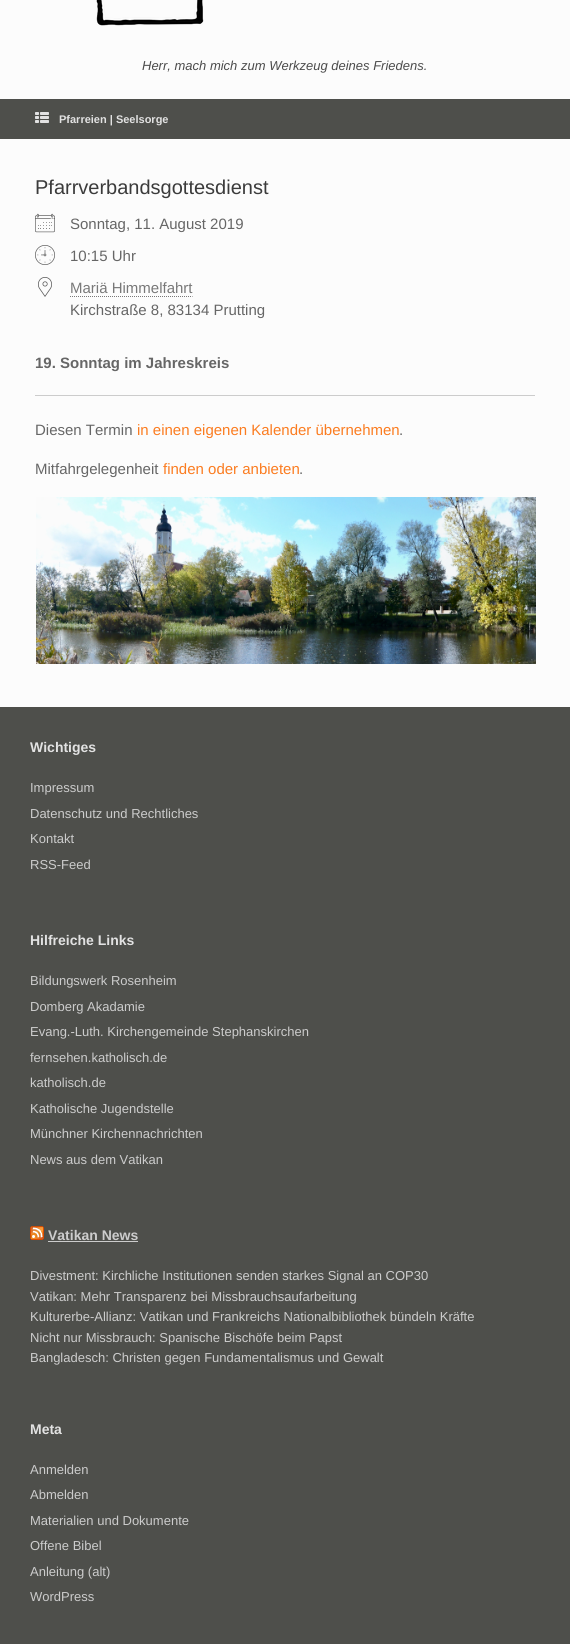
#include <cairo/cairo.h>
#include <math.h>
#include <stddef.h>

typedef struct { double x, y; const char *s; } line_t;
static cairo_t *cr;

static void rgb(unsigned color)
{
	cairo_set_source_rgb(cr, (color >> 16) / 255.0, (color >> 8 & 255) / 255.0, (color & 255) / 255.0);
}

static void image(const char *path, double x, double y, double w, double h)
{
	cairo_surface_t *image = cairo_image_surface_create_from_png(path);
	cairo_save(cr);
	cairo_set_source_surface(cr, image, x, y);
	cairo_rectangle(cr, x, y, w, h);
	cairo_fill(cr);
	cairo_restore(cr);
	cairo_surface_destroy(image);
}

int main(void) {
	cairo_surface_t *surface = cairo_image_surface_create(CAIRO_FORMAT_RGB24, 570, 1644);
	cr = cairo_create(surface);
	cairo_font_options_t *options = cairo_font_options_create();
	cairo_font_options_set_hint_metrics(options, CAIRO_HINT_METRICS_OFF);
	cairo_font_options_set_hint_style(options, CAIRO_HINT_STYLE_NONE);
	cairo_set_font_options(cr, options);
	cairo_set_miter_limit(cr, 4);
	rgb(0x4e4f4b);
	cairo_paint(cr);
	rgb(0xfcfcfc);
	cairo_rectangle(cr, 0, 0, 570, 99);
	cairo_fill(cr);
	image("img/1.png", 96, 0, 108, 26);
	image("img/2.png", 35, 112, 14, 11);
	cairo_rectangle(cr, 0, 139, 570, 568);
	cairo_fill(cr);
	image("img/3.png", 35, 213, 20, 20);
	image("img/4.png", 35, 245, 20, 20);
	image("img/5.png", 38, 277, 14, 20);
	cairo_new_path(cr);
	cairo_move_to(cr, 70, 296.5);
	cairo_line_to(cr, 192.5, 296.5);
	rgb(0x787878);
	cairo_set_line_width(cr, 1);
	cairo_set_dash(cr, (double[]){1, 1}, 2, 0);
	cairo_stroke(cr);
	rgb(0xcccccc);
	cairo_rectangle(cr, 35, 395, 500, 1);
	cairo_fill(cr);
	image("img/6.png", 36, 497, 500, 167);
	image("img/7.png", 30, 1226, 14, 14);
	cairo_rectangle(cr, 48, 1241, 90, 1);
	cairo_fill(cr);
	cairo_select_font_face(cr, "Liberation Sans", CAIRO_FONT_SLANT_ITALIC, CAIRO_FONT_WEIGHT_NORMAL);
	cairo_set_font_size(cr, 13);
	rgb(0x4b4b4b);
	cairo_move_to(cr, 142, 70);
	cairo_show_text(cr, "Herr, mach mich zum Werkzeug deines Friedens.");
	cairo_select_font_face(cr, "Liberation Sans", CAIRO_FONT_SLANT_NORMAL, CAIRO_FONT_WEIGHT_BOLD);
	cairo_set_font_size(cr, 11);
	rgb(0xe2e2e2);
	cairo_move_to(cr, 59, 123);
	cairo_show_text(cr, "Pfarreien | Seelsorge");
	cairo_select_font_face(cr, "Liberation Sans", CAIRO_FONT_SLANT_NORMAL, CAIRO_FONT_WEIGHT_NORMAL);
	cairo_set_font_size(cr, 20);
	rgb(0x3b3b3b);
	cairo_move_to(cr, 35, 194);
	cairo_show_text(cr, "Pfarrverbandsgottesdienst");
	cairo_set_font_size(cr, 15);
	rgb(0x666666);
	cairo_move_to(cr, 70, 229);
	cairo_show_text(cr, "Sonntag, 11. August 2019");
	cairo_move_to(cr, 70, 261);
	cairo_show_text(cr, "10:15 Uhr");
	rgb(0x787878);
	cairo_move_to(cr, 70, 293);
	cairo_show_text(cr, "Mariä Himmelfahrt");
	rgb(0x666666);
	cairo_move_to(cr, 70, 315);
	cairo_show_text(cr, "Kirchstraße 8, 83134 Prutting");
	cairo_select_font_face(cr, "Liberation Sans", CAIRO_FONT_SLANT_NORMAL, CAIRO_FONT_WEIGHT_BOLD);
	cairo_move_to(cr, 35, 368);
	cairo_show_text(cr, "19. Sonntag im Jahreskreis");
	cairo_select_font_face(cr, "Liberation Sans", CAIRO_FONT_SLANT_NORMAL, CAIRO_FONT_WEIGHT_NORMAL);
	cairo_move_to(cr, 35, 435);
	cairo_show_text(cr, "Diesen Termin");
	rgb(0xfb7c20);
	cairo_move_to(cr, 137, 435);
	cairo_show_text(cr, "in einen eigenen Kalender übernehmen");
	rgb(0x666666);
	cairo_move_to(cr, 399, 435);
	cairo_show_text(cr, ".");
	cairo_move_to(cr, 35, 474);
	cairo_show_text(cr, "Mitfahrgelegenheit");
	rgb(0xfb7c20);
	cairo_move_to(cr, 163, 474);
	cairo_show_text(cr, "finden oder anbieten");
	rgb(0x666666);
	cairo_move_to(cr, 299, 474);
	cairo_show_text(cr, ".");
	cairo_select_font_face(cr, "Liberation Sans", CAIRO_FONT_SLANT_NORMAL, CAIRO_FONT_WEIGHT_BOLD);
	cairo_set_font_size(cr, 14);
	rgb(0xe2e2e2);
	cairo_move_to(cr, 30, 752);
	cairo_show_text(cr, "Wichtiges");
	cairo_select_font_face(cr, "Liberation Sans", CAIRO_FONT_SLANT_NORMAL, CAIRO_FONT_WEIGHT_NORMAL);
	cairo_set_font_size(cr, 13);
	rgb(0xcccccc);
	{
		static const line_t items[] = {
			{30, 792, "Impressum"},
			{30, 818, "Datenschutz und Rechtliches"},
			{30, 843, "Kontakt"},
			{30, 869, "RSS-Feed"},
		};
		for (size_t i = 0; i < sizeof items / sizeof *items; i++) {
			cairo_move_to(cr, items[i].x, items[i].y);
			cairo_show_text(cr, items[i].s);
		}
	}
	cairo_select_font_face(cr, "Liberation Sans", CAIRO_FONT_SLANT_NORMAL, CAIRO_FONT_WEIGHT_BOLD);
	cairo_set_font_size(cr, 14);
	rgb(0xe2e2e2);
	cairo_move_to(cr, 30, 945);
	cairo_show_text(cr, "Hilfreiche Links");
	cairo_select_font_face(cr, "Liberation Sans", CAIRO_FONT_SLANT_NORMAL, CAIRO_FONT_WEIGHT_NORMAL);
	cairo_set_font_size(cr, 13);
	rgb(0xcccccc);
	{
		static const line_t items[] = {
			{30, 985, "Bildungswerk Rosenheim"},
			{30, 1011, "Domberg Akadamie"},
			{30, 1036, "Evang.-Luth. Kirchengemeinde Stephanskirchen"},
			{30, 1062, "fernsehen.katholisch.de"},
			{30, 1087, "katholisch.de"},
			{30, 1113, "Katholische Jugendstelle"},
			{30, 1138, "Münchner Kirchennachrichten"},
			{30, 1164, "News aus dem Vatikan"},
		};
		for (size_t i = 0; i < sizeof items / sizeof *items; i++) {
			cairo_move_to(cr, items[i].x, items[i].y);
			cairo_show_text(cr, items[i].s);
		}
	}
	cairo_select_font_face(cr, "Liberation Sans", CAIRO_FONT_SLANT_NORMAL, CAIRO_FONT_WEIGHT_BOLD);
	cairo_set_font_size(cr, 14);
	cairo_move_to(cr, 48, 1240);
	cairo_show_text(cr, "Vatikan News");
	cairo_select_font_face(cr, "Liberation Sans", CAIRO_FONT_SLANT_NORMAL, CAIRO_FONT_WEIGHT_NORMAL);
	cairo_set_font_size(cr, 13);
	{
		static const line_t items[] = {
			{30, 1280, "Divestment: Kirchliche Institutionen senden starkes Signal an COP30"},
			{30, 1301, "Vatikan: Mehr Transparenz bei Missbrauchsaufarbeitung"},
			{30, 1321, "Kulturerbe-Allianz: Vatikan und Frankreichs Nationalbibliothek bündeln Kräfte"},
			{30, 1342, "Nicht nur Missbrauch: Spanische Bischöfe beim Papst"},
			{30, 1362, "Bangladesch: Christen gegen Fundamentalismus und Gewalt"},
		};
		for (size_t i = 0; i < sizeof items / sizeof *items; i++) {
			cairo_move_to(cr, items[i].x, items[i].y);
			cairo_show_text(cr, items[i].s);
		}
	}
	cairo_select_font_face(cr, "Liberation Sans", CAIRO_FONT_SLANT_NORMAL, CAIRO_FONT_WEIGHT_BOLD);
	cairo_set_font_size(cr, 14);
	rgb(0xe2e2e2);
	cairo_move_to(cr, 30, 1434);
	cairo_show_text(cr, "Meta");
	cairo_select_font_face(cr, "Liberation Sans", CAIRO_FONT_SLANT_NORMAL, CAIRO_FONT_WEIGHT_NORMAL);
	cairo_set_font_size(cr, 13);
	rgb(0xcccccc);
	{
		static const line_t items[] = {
			{30, 1474, "Anmelden"},
			{30, 1499, "Abmelden"},
			{30, 1525, "Materialien und Dokumente"},
			{30, 1550, "Offene Bibel"},
			{30, 1576, "Anleitung (alt)"},
			{30, 1601, "WordPress"},
		};
		for (size_t i = 0; i < sizeof items / sizeof *items; i++) {
			cairo_move_to(cr, items[i].x, items[i].y);
			cairo_show_text(cr, items[i].s);
		}
	}
	cairo_surface_write_to_png(surface, "page.png");
	cairo_font_options_destroy(options);
	cairo_destroy(cr);
	cairo_surface_destroy(surface);
	return 0;
}
